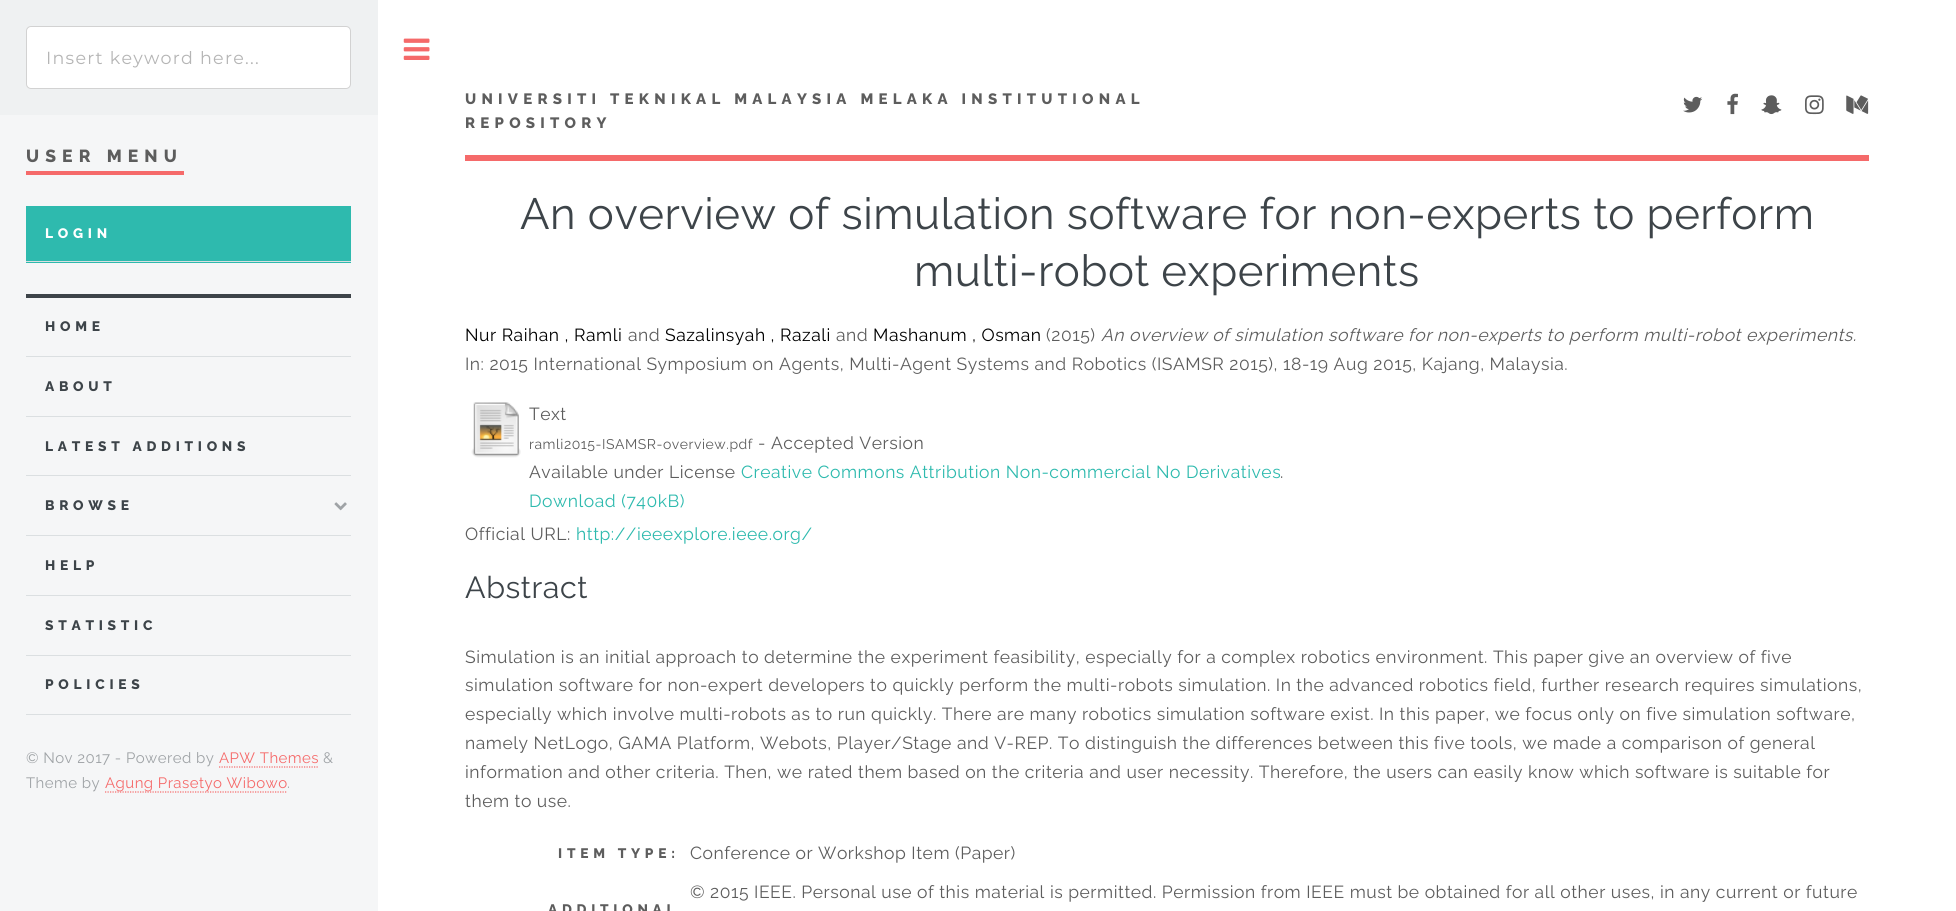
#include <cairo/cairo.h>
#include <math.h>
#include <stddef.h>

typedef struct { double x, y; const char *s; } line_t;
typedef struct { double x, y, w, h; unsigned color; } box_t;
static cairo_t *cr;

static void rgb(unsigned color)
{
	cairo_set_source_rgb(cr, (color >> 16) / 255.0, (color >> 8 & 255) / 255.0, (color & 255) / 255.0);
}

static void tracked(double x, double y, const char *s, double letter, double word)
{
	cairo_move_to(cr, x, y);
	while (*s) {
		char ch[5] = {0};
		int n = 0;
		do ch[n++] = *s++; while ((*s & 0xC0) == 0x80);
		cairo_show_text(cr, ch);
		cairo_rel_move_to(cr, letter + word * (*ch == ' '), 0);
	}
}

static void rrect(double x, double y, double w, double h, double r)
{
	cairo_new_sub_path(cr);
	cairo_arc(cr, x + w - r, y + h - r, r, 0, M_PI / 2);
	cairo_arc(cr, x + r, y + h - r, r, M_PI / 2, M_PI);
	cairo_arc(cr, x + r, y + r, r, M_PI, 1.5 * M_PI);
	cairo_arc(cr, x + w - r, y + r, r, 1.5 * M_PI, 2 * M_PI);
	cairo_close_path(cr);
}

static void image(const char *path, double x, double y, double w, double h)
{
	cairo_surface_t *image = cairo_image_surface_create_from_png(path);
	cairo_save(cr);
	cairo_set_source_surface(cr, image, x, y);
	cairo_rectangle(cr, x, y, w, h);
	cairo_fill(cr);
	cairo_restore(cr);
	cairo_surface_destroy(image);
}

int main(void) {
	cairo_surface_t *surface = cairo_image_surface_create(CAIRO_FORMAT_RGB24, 1956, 911);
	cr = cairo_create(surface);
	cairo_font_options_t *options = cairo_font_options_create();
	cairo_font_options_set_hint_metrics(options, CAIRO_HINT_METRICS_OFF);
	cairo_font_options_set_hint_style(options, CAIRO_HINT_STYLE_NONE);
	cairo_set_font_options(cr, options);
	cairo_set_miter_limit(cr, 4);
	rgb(0xffffff);
	cairo_paint(cr);
	rgb(0xf5f6f7);
	cairo_rectangle(cr, 0, 115, 378, 796);
	cairo_fill(cr);
	rgb(0xeff1f2);
	cairo_rectangle(cr, 0, 0, 378, 115);
	cairo_fill(cr);
	rgb(0xffffff);
	rrect(26.5, 26.5, 324, 62, 4.5);
	cairo_fill_preserve(cr);
	rgb(0xd2d2d2);
	cairo_set_line_width(cr, 1);
	cairo_stroke(cr);
	{
		static const box_t items[] = {
			{26, 171, 158, 4, 0xf56a6a},
			{26, 206, 325, 57, 0x2ebaae},
			{26, 261, 325, 1, 0xdbdfe1},
			{26, 294, 325, 4, 0x3d4449},
			{26, 356, 325, 1, 0xdbdfe1},
			{26, 416, 325, 1, 0xdbdfe1},
			{26, 475, 325, 1, 0xdbdfe1},
		};
		for (size_t i = 0; i < sizeof items / sizeof *items; i++) {
			rgb(items[i].color);
			cairo_rectangle(cr, items[i].x, items[i].y, items[i].w, items[i].h);
			cairo_fill(cr);
		}
	}
	image("img/1.png", 334, 502, 13, 9);
	{
		static const box_t items[] = {
			{26, 535, 325, 1, 0xdbdfe1},
			{26, 595, 325, 1, 0xdbdfe1},
			{26, 655, 325, 1, 0xdbdfe1},
			{26, 714, 325, 1, 0xdbdfe1},
		};
		for (size_t i = 0; i < sizeof items / sizeof *items; i++) {
			rgb(items[i].color);
			cairo_rectangle(cr, items[i].x, items[i].y, items[i].w, items[i].h);
			cairo_fill(cr);
		}
	}
	cairo_new_path(cr);
	cairo_move_to(cr, 219, 767);
	cairo_line_to(cr, 319, 767);
	rgb(0xf56a6a);
	cairo_set_line_width(cr, 1.2);
	cairo_set_dash(cr, (double[]){1.25, 1.25}, 2, 0);
	cairo_stroke(cr);
	cairo_new_path(cr);
	cairo_move_to(cr, 105, 792);
	cairo_line_to(cr, 287.5, 792);
	cairo_stroke(cr);
	image("img/2.png", 403, 38, 27, 22);
	cairo_rectangle(cr, 465, 155, 1404, 6);
	cairo_fill(cr);
	image("img/3.png", 1683, 96, 20, 17);
	image("img/4.png", 1727, 93, 11, 22);
	image("img/5.png", 1761, 95, 21, 20);
	image("img/6.png", 1805, 95, 19, 20);
	image("img/7.png", 1846, 95, 23, 19);
	image("img/8.png", 471, 402, 50, 56);
	cairo_select_font_face(cr, "Montserrat", CAIRO_FONT_SLANT_NORMAL, CAIRO_FONT_WEIGHT_NORMAL);
	cairo_set_font_size(cr, 17.5);
	rgb(0xb5b5b5);
	tracked(46, 64, "Insert keyword here...", 1.25, 0);
	cairo_select_font_face(cr, "Raleway ExtraBold", CAIRO_FONT_SLANT_NORMAL, CAIRO_FONT_WEIGHT_NORMAL);
	rgb(0x5d5d5d);
	tracked(26, 162, "USER MENU", 6.1, 0);
	cairo_set_font_size(cr, 13.75);
	rgb(0xffffff);
	tracked(45, 238, "LOGIN", 4.75, 0);
	rgb(0x3d4449);
	{
		static const line_t items[] = {
			{45, 331, "HOME"},
			{45, 391, "ABOUT"},
			{45, 451, "LATEST ADDITIONS"},
			{45, 510, "BROWSE"},
			{45, 570, "HELP"},
			{45, 630, "STATISTIC"},
			{45, 689, "POLICIES"},
		};
		for (size_t i = 0; i < sizeof items / sizeof *items; i++) {
			tracked(items[i].x, items[i].y, items[i].s, 4.75, 0);
		}
	}
	cairo_select_font_face(cr, "Raleway", CAIRO_FONT_SLANT_NORMAL, CAIRO_FONT_WEIGHT_NORMAL);
	cairo_set_font_size(cr, 15);
	rgb(0x9fa3a6);
	tracked(26, 763, "© Nov 2017 - Powered by", 0.45, 0);
	rgb(0xf56a6a);
	tracked(219, 763, "APW Themes", 0.45, 0);
	rgb(0x9fa3a6);
	tracked(323, 763, "&", 0.45, 0);
	tracked(26, 788, "Theme by", 0.45, 0);
	rgb(0xf56a6a);
	tracked(105, 788, "Agung Prasetyo Wibowo", 0.45, 0);
	rgb(0x9fa3a6);
	tracked(287, 788, ".", 0.45, 0);
	cairo_select_font_face(cr, "Raleway ExtraBold", CAIRO_FONT_SLANT_NORMAL, CAIRO_FONT_WEIGHT_NORMAL);
	rgb(0x5d5d5d);
	tracked(465, 104, "UNIVERSITI TEKNIKAL MALAYSIA MELAKA INSTITUTIONAL", 5.25, 0);
	tracked(465, 128, "REPOSITORY", 5.25, 0);
	cairo_select_font_face(cr, "Raleway", CAIRO_FONT_SLANT_NORMAL, CAIRO_FONT_WEIGHT_NORMAL);
	cairo_set_font_size(cr, 43.75);
	rgb(0x3d4449);
	tracked(520, 229, "An overview of simulation software for non-experts to perform", 0.53, 0);
	tracked(914, 286, "multi-robot experiments", 0.53, 0);
	cairo_set_font_size(cr, 17.5);
	rgb(0x000000);
	tracked(465, 341, "Nur Raihan , Ramli", 0.53, 0);
	rgb(0x5d5d5d);
	tracked(628, 341, "and", 0.53, 0);
	rgb(0x000000);
	tracked(665, 341, "Sazalinsyah , Razali", 0.53, 0);
	rgb(0x5d5d5d);
	tracked(836, 341, "and", 0.53, 0);
	rgb(0x000000);
	tracked(873, 341, "Mashanum , Osman", 0.53, 0);
	rgb(0x5d5d5d);
	tracked(1046, 341, "(2015)", 0.53, 0);
	cairo_select_font_face(cr, "Raleway", CAIRO_FONT_SLANT_ITALIC, CAIRO_FONT_WEIGHT_NORMAL);
	tracked(1101, 341, "An overview of simulation software for non-experts to perform multi-robot experiments.", 0.53, 0);
	cairo_select_font_face(cr, "Raleway", CAIRO_FONT_SLANT_NORMAL, CAIRO_FONT_WEIGHT_NORMAL);
	tracked(465, 370, "In: 2015 International Symposium on Agents, Multi-Agent Systems and Robotics (ISAMSR 2015), 18-19 Aug 2015, Kajang, Malaysia.", 0.53, 0);
	tracked(529, 420, "Text", 0.53, 0);
	cairo_set_font_size(cr, 14);
	tracked(529, 449, "ramli2015-ISAMSR-overview.pdf", 0.53, 0);
	cairo_set_font_size(cr, 17.5);
	tracked(758, 449, "- Accepted Version", 0.53, 0);
	tracked(529, 478, "Available under License", 0.53, 0);
	rgb(0x2ebaae);
	tracked(741, 478, "Creative Commons Attribution Non-commercial No Derivatives", 0.53, 0);
	rgb(0x5d5d5d);
	tracked(1280, 478, ".", 0.53, 0);
	rgb(0x2ebaae);
	tracked(529, 507, "Download (740kB)", 0.53, 0);
	rgb(0x5d5d5d);
	tracked(465, 540, "Official URL:", 0.53, 0);
	rgb(0x2ebaae);
	tracked(576, 540, "http://ieeexplore.ieee.org/", 0.53, 0);
	cairo_set_font_size(cr, 30.5);
	rgb(0x3d4449);
	tracked(465, 598, "Abstract", 0.53, 0);
	cairo_set_font_size(cr, 17.5);
	rgb(0x5d5d5d);
	{
		static const line_t items[] = {
			{465, 663, "Simulation is an initial approach to determine the experiment feasibility, especially for a complex robotics environment. This paper give an overview of five"},
			{465, 691, "simulation software for non-expert developers to quickly perform the multi-robots simulation. In the advanced robotics field, further research requires simulations,"},
			{465, 720, "especially which involve multi-robots as to run quickly. There are many robotics simulation software exist. In this paper, we focus only on five simulation software,"},
			{465, 749, "namely NetLogo, GAMA Platform, Webots, Player/Stage and V-REP. To distinguish the differences between this five tools, we made a comparison of general"},
			{465, 778, "information and other criteria. Then, we rated them based on the criteria and user necessity. Therefore, the users can easily know which software is suitable for"},
			{465, 807, "them to use."},
		};
		for (size_t i = 0; i < sizeof items / sizeof *items; i++) {
			tracked(items[i].x, items[i].y, items[i].s, 0.53, 0);
		}
	}
	cairo_select_font_face(cr, "Raleway ExtraBold", CAIRO_FONT_SLANT_NORMAL, CAIRO_FONT_WEIGHT_NORMAL);
	cairo_set_font_size(cr, 13.75);
	tracked(558, 858, "ITEM TYPE:", 4.75, 0);
	cairo_select_font_face(cr, "Raleway", CAIRO_FONT_SLANT_NORMAL, CAIRO_FONT_WEIGHT_NORMAL);
	cairo_set_font_size(cr, 17.5);
	tracked(690, 859, "Conference or Workshop Item (Paper)", 0.53, 0);
	tracked(690, 898, "© 2015 IEEE. Personal use of this material is permitted. Permission from IEEE must be obtained for all other uses, in any current or future", 0.53, 0);
	cairo_select_font_face(cr, "Raleway ExtraBold", CAIRO_FONT_SLANT_NORMAL, CAIRO_FONT_WEIGHT_NORMAL);
	cairo_set_font_size(cr, 13.75);
	tracked(548, 914, "ADDITIONAL", 4.75, 0);
	cairo_surface_write_to_png(surface, "page.png");
	cairo_font_options_destroy(options);
	cairo_destroy(cr);
	cairo_surface_destroy(surface);
	return 0;
}
